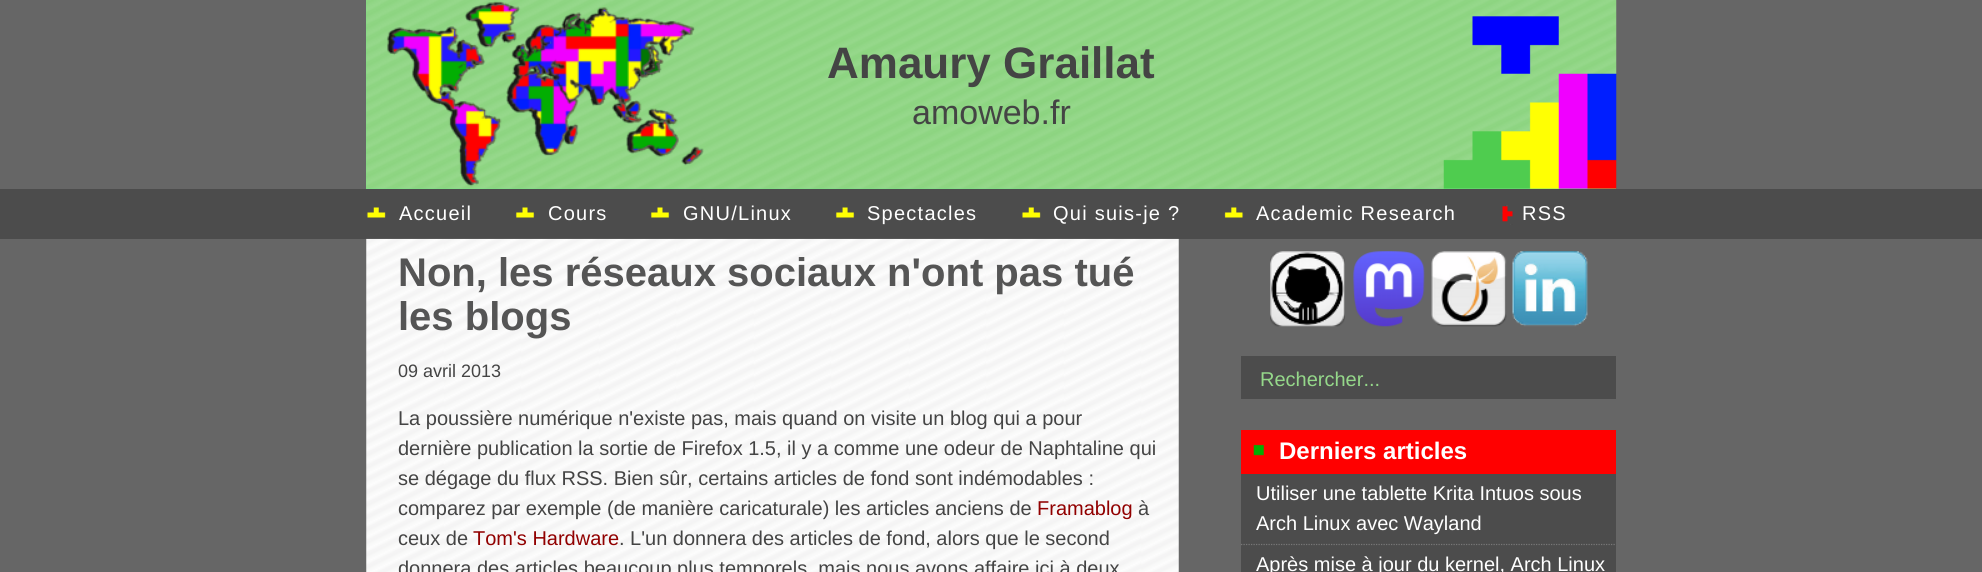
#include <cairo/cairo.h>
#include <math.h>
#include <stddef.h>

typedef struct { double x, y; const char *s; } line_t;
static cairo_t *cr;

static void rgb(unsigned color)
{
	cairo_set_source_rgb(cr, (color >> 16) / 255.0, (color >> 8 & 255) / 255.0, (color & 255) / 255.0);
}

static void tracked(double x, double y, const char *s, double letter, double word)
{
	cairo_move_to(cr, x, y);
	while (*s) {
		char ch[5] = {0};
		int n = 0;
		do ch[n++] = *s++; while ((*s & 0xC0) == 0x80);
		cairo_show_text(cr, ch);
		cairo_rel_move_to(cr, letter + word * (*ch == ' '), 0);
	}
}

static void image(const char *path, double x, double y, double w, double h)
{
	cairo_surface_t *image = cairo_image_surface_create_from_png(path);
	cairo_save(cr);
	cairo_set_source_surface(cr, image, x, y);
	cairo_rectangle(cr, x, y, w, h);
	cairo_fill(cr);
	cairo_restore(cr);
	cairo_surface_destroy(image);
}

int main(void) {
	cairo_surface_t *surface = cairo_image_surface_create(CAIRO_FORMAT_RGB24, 1982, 572);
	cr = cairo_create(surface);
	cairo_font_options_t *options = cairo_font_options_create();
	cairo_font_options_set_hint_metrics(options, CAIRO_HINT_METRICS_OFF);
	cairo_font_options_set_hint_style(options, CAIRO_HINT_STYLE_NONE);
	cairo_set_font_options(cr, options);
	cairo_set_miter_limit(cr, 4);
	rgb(0x4c4c4c);
	cairo_paint(cr);
	rgb(0x666666);
	cairo_rectangle(cr, 0, 0, 1982, 189);
	cairo_fill(cr);
	rgb(0x76e387);
	cairo_rectangle(cr, 366, 0, 1250, 189);
	cairo_fill(cr);
	image("img/1.png", 366, 0, 1251, 189);
	image("img/2.png", 366, 207, 20, 11);
	image("img/3.png", 515, 207, 20, 11);
	image("img/3.png", 650, 207, 20, 11);
	image("img/4.png", 835, 207, 20, 11);
	image("img/2.png", 1021, 207, 20, 11);
	image("img/5.png", 1224, 207, 20, 11);
	image("img/6.png", 1502, 205, 11, 20);
	rgb(0x666666);
	cairo_rectangle(cr, 0, 239, 1982, 333);
	cairo_fill(cr);
	image("img/7.png", 366, 238, 813, 334);
	image("img/8.png", 1270, 251, 75, 76);
	image("img/9.png", 1353, 251, 72, 76);
	image("img/10.png", 1431, 251, 76, 76);
	image("img/11.png", 1512, 251, 76, 76);
	rgb(0x4c4c4c);
	cairo_rectangle(cr, 1241, 356, 375, 43);
	cairo_fill(cr);
	rgb(0xff0000);
	cairo_rectangle(cr, 1241, 430, 375, 44);
	cairo_fill(cr);
	image("img/12.png", 1253, 444, 11, 12);
	rgb(0x4c4c4c);
	cairo_rectangle(cr, 1241, 474, 375, 98);
	cairo_fill(cr);
	cairo_new_path(cr);
	cairo_move_to(cr, 1241, 544.5);
	cairo_line_to(cr, 1616, 544.5);
	rgb(0x777777);
	cairo_set_line_width(cr, 1.2);
	cairo_set_dash(cr, (double[]){1.25, 1.25}, 2, 0);
	cairo_stroke(cr);
	cairo_select_font_face(cr, "Liberation Sans", CAIRO_FONT_SLANT_NORMAL, CAIRO_FONT_WEIGHT_BOLD);
	cairo_set_font_size(cr, 44);
	rgb(0x444444);
	cairo_move_to(cr, 827, 78);
	cairo_show_text(cr, "Amaury Graillat");
	cairo_select_font_face(cr, "Liberation Sans", CAIRO_FONT_SLANT_NORMAL, CAIRO_FONT_WEIGHT_NORMAL);
	cairo_set_font_size(cr, 34);
	cairo_move_to(cr, 912, 124);
	cairo_show_text(cr, "amoweb.fr");
	cairo_set_font_size(cr, 20);
	rgb(0xffffff);
	{
		static const line_t items[] = {
			{399, 220, "Accueil"},
			{548, 220, "Cours"},
			{683, 220, "GNU/Linux"},
			{867, 220, "Spectacles"},
			{1053, 220, "Qui suis-je ?"},
			{1256, 220, "Academic Research"},
			{1522, 220, "RSS"},
		};
		for (size_t i = 0; i < sizeof items / sizeof *items; i++) {
			tracked(items[i].x, items[i].y, items[i].s, 1.25, 0);
		}
	}
	cairo_select_font_face(cr, "Liberation Sans", CAIRO_FONT_SLANT_NORMAL, CAIRO_FONT_WEIGHT_BOLD);
	cairo_set_font_size(cr, 40);
	rgb(0x555555);
	cairo_move_to(cr, 398, 286);
	cairo_show_text(cr, "Non, les réseaux sociaux n'ont pas tué");
	cairo_move_to(cr, 398, 330);
	cairo_show_text(cr, "les blogs");
	cairo_select_font_face(cr, "Liberation Sans", CAIRO_FONT_SLANT_NORMAL, CAIRO_FONT_WEIGHT_NORMAL);
	cairo_set_font_size(cr, 18);
	rgb(0x444444);
	cairo_move_to(cr, 398, 377);
	cairo_show_text(cr, "09 avril 2013");
	cairo_set_font_size(cr, 20);
	{
		static const line_t items[] = {
			{398, 425, "La poussière numérique n'existe pas, mais quand on visite un blog qui a pour"},
			{398, 455, "dernière publication la sortie de Firefox 1.5, il y a comme une odeur de Naphtaline qui"},
			{398, 485, "se dégage du flux RSS. Bien sûr, certains articles de fond sont indémodables :"},
			{398, 515, "comparez par exemple (de manière caricaturale) les articles anciens de"},
		};
		for (size_t i = 0; i < sizeof items / sizeof *items; i++) {
			cairo_move_to(cr, items[i].x, items[i].y);
			cairo_show_text(cr, items[i].s);
		}
	}
	rgb(0x910000);
	cairo_move_to(cr, 1037, 515);
	cairo_show_text(cr, "Framablog");
	rgb(0x444444);
	cairo_move_to(cr, 1138, 515);
	cairo_show_text(cr, "à");
	cairo_move_to(cr, 398, 545);
	cairo_show_text(cr, "ceux de");
	rgb(0x910000);
	cairo_move_to(cr, 473, 545);
	cairo_show_text(cr, "Tom's Hardware");
	rgb(0x444444);
	cairo_move_to(cr, 619, 545);
	cairo_show_text(cr, ". L'un donnera des articles de fond, alors que le second");
	cairo_move_to(cr, 398, 575);
	cairo_show_text(cr, "donnera des articles beaucoup plus temporels, mais nous avons affaire ici à deux");
	rgb(0x95d88a);
	cairo_move_to(cr, 1260, 386);
	cairo_show_text(cr, "Rechercher...");
	cairo_select_font_face(cr, "Liberation Sans", CAIRO_FONT_SLANT_NORMAL, CAIRO_FONT_WEIGHT_BOLD);
	cairo_set_font_size(cr, 24);
	rgb(0xffffff);
	cairo_move_to(cr, 1279, 459);
	cairo_show_text(cr, "Derniers articles");
	cairo_select_font_face(cr, "Liberation Sans", CAIRO_FONT_SLANT_NORMAL, CAIRO_FONT_WEIGHT_NORMAL);
	cairo_set_font_size(cr, 20);
	{
		static const line_t items[] = {
			{1256, 500, "Utiliser une tablette Krita Intuos sous"},
			{1256, 530, "Arch Linux avec Wayland"},
			{1256, 571, "Après mise à jour du kernel, Arch Linux"},
		};
		for (size_t i = 0; i < sizeof items / sizeof *items; i++) {
			cairo_move_to(cr, items[i].x, items[i].y);
			cairo_show_text(cr, items[i].s);
		}
	}
	cairo_surface_write_to_png(surface, "page.png");
	cairo_font_options_destroy(options);
	cairo_destroy(cr);
	cairo_surface_destroy(surface);
	return 0;
}
